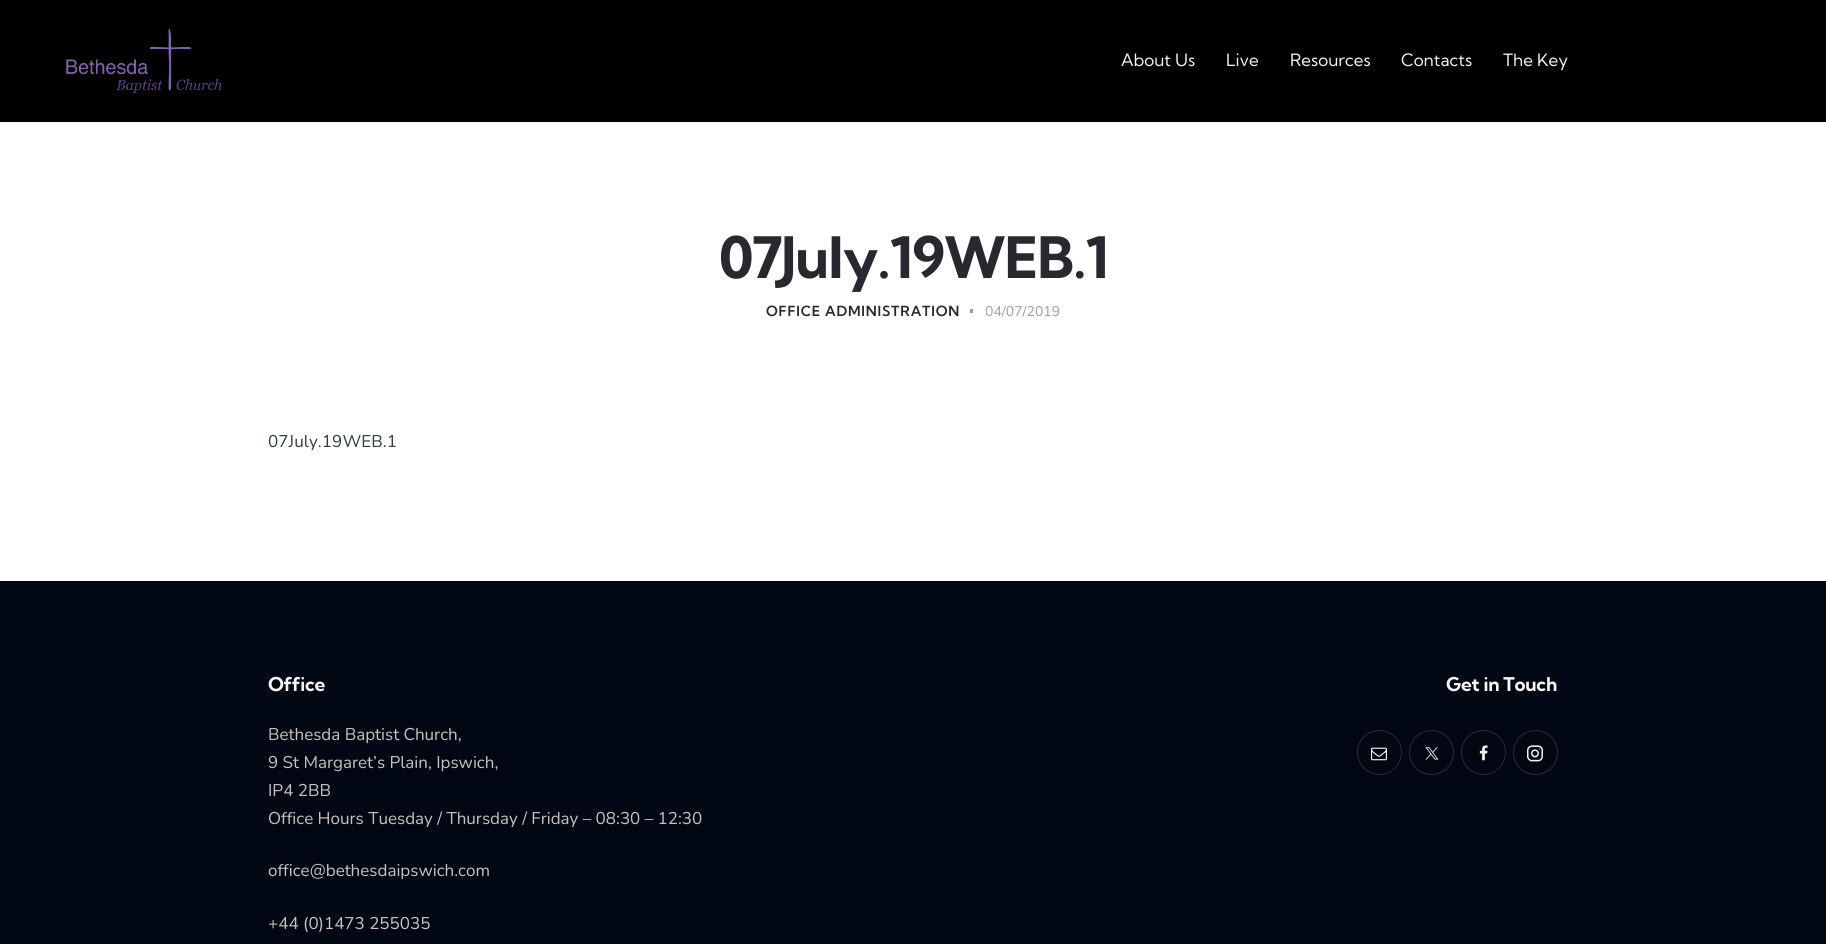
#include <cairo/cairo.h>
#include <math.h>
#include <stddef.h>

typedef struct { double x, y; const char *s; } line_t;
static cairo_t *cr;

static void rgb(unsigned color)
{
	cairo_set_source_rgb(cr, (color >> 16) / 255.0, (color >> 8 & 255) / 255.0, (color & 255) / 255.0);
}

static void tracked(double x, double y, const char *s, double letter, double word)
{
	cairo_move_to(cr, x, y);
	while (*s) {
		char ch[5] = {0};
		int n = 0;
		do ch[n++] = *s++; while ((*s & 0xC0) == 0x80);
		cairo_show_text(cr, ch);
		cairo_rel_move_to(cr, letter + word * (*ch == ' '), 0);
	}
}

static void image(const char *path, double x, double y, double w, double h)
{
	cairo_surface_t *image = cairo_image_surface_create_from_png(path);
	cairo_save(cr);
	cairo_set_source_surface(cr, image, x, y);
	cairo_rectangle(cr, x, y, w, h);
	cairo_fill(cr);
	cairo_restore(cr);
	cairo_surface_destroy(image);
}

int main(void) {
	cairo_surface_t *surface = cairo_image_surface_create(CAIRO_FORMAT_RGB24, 1826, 944);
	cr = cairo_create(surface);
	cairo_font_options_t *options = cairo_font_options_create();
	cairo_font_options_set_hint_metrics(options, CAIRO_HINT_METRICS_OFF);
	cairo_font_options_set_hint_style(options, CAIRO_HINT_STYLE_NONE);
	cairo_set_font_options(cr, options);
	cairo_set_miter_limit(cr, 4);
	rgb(0xffffff);
	cairo_paint(cr);
	rgb(0x000000);
	cairo_rectangle(cr, 0, 0, 1826, 122);
	cairo_fill(cr);
	image("img/1.png", 66, 29, 156, 65);
	rgb(0x999ca7);
	cairo_rectangle(cr, 970, 309, 3, 4);
	cairo_fill(cr);
	rgb(0x010813);
	cairo_rectangle(cr, 0, 581, 1826, 363);
	cairo_fill(cr);
	cairo_arc(cr, 1379.5, 752.5, 22, 0, 2 * M_PI);
	rgb(0x262b34);
	cairo_set_line_width(cr, 1);
	cairo_stroke(cr);
	image("img/2.png", 1371, 747, 16, 14);
	cairo_arc(cr, 1431.5, 752.5, 22, 0, 2 * M_PI);
	cairo_stroke(cr);
	image("img/3.png", 1425, 747, 14, 13);
	cairo_arc(cr, 1483.5, 752.5, 22, 0, 2 * M_PI);
	cairo_stroke(cr);
	image("img/4.png", 1479, 745, 9, 16);
	cairo_arc(cr, 1535.5, 752.5, 22, 0, 2 * M_PI);
	cairo_stroke(cr);
	image("img/5.png", 1527, 745, 16, 17);
	cairo_select_font_face(cr, "Kumbh Sans", CAIRO_FONT_SLANT_NORMAL, CAIRO_FONT_WEIGHT_NORMAL);
	cairo_set_font_size(cr, 17);
	rgb(0xf8f2f1);
	{
		static const line_t items[] = {
			{1121, 66, "About Us"},
			{1226, 66, "Live"},
			{1290, 66, "Resources"},
			{1401, 66, "Contacts"},
			{1503, 66, "The Key"},
		};
		for (size_t i = 0; i < sizeof items / sizeof *items; i++) {
			cairo_move_to(cr, items[i].x, items[i].y);
			cairo_show_text(cr, items[i].s);
		}
	}
	cairo_select_font_face(cr, "Kumbh Sans", CAIRO_FONT_SLANT_NORMAL, CAIRO_FONT_WEIGHT_BOLD);
	cairo_set_font_size(cr, 57);
	rgb(0x28282e);
	tracked(719, 278, "07July.19WEB.1", -1.1, 0);
	cairo_select_font_face(cr, "Kumbh Sans SemiBold", CAIRO_FONT_SLANT_NORMAL, CAIRO_FONT_WEIGHT_NORMAL);
	cairo_set_font_size(cr, 14);
	tracked(766, 316, "OFFICE ADMINISTRATION", 0.8, 0);
	cairo_select_font_face(cr, "Nunito", CAIRO_FONT_SLANT_NORMAL, CAIRO_FONT_WEIGHT_NORMAL);
	rgb(0x999ca7);
	cairo_move_to(cr, 985, 316);
	cairo_show_text(cr, "04/07/2019");
	cairo_set_font_size(cr, 17);
	rgb(0x323a3b);
	tracked(268, 447, "07July.19WEB.1", 0.1, 0);
	cairo_select_font_face(cr, "Kumbh Sans", CAIRO_FONT_SLANT_NORMAL, CAIRO_FONT_WEIGHT_BOLD);
	cairo_set_font_size(cr, 19);
	rgb(0xf8f2f1);
	tracked(268, 691, "Office", -0.25, 0);
	cairo_select_font_face(cr, "Nunito", CAIRO_FONT_SLANT_NORMAL, CAIRO_FONT_WEIGHT_NORMAL);
	cairo_set_font_size(cr, 17);
	rgb(0xcac2c0);
	{
		static const line_t items[] = {
			{268, 740, "Bethesda Baptist Church,"},
			{268, 768, "9 St Margaret’s Plain, Ipswich,"},
			{268, 796, "IP4 2BB"},
			{268, 824, "Office Hours Tuesday / Thursday / Friday – 08:30 – 12:30"},
			{268, 876, "office@bethesdaipswich.com"},
			{268, 929, "+44 (0)1473 255035"},
		};
		for (size_t i = 0; i < sizeof items / sizeof *items; i++) {
			cairo_move_to(cr, items[i].x, items[i].y);
			cairo_show_text(cr, items[i].s);
		}
	}
	cairo_select_font_face(cr, "Kumbh Sans", CAIRO_FONT_SLANT_NORMAL, CAIRO_FONT_WEIGHT_BOLD);
	cairo_set_font_size(cr, 19);
	rgb(0xf8f2f1);
	tracked(1446, 691, "Get in Touch", -0.25, 0);
	cairo_surface_write_to_png(surface, "page.png");
	cairo_font_options_destroy(options);
	cairo_destroy(cr);
	cairo_surface_destroy(surface);
	return 0;
}
